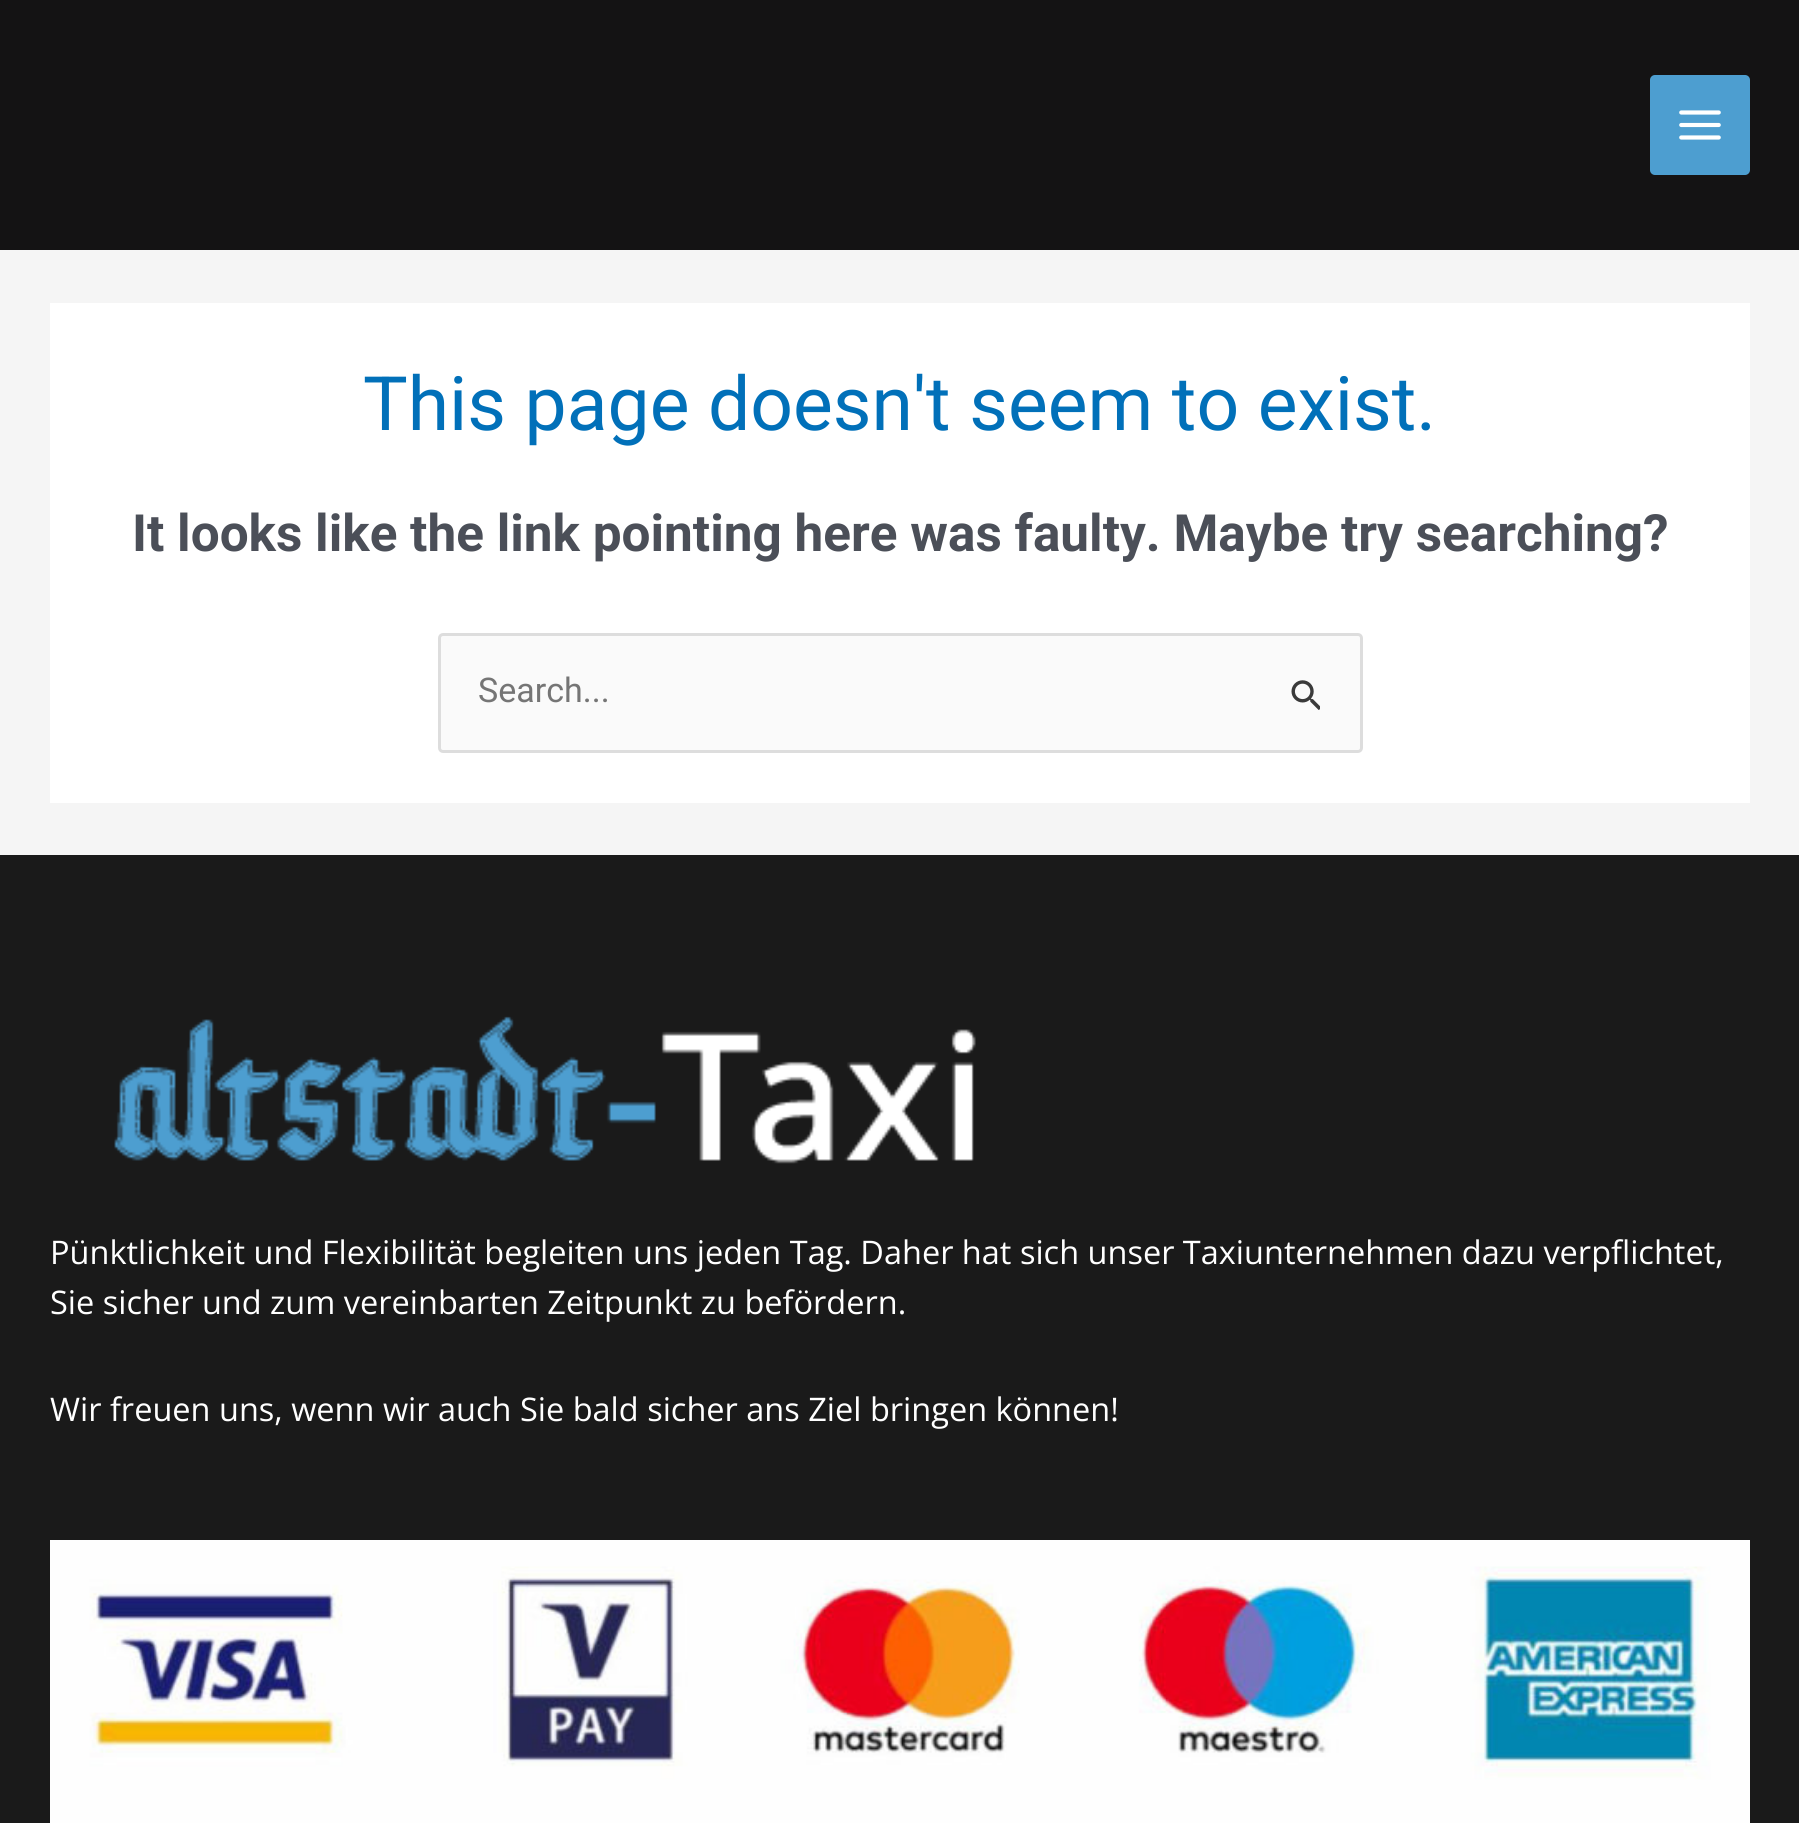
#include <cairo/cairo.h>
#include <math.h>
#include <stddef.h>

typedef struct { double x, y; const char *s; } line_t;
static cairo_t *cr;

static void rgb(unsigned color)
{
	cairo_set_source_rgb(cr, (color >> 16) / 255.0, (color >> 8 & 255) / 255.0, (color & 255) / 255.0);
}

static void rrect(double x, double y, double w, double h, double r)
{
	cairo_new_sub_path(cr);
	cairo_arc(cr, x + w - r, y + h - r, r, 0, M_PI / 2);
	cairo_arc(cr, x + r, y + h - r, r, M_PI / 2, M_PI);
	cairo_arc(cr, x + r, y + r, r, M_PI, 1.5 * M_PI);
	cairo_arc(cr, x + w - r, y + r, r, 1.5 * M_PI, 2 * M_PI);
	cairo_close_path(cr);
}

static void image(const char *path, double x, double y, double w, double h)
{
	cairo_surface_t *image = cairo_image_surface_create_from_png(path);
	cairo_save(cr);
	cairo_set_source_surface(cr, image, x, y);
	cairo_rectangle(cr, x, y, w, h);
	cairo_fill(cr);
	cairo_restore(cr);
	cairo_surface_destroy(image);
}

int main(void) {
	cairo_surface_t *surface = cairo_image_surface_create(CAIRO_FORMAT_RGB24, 1799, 1823);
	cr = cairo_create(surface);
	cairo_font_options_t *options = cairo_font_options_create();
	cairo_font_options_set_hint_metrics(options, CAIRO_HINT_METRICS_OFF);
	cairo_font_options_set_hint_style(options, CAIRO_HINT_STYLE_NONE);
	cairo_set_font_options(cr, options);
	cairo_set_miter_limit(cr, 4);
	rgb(0xf5f5f5);
	cairo_paint(cr);
	rgb(0x141314);
	cairo_rectangle(cr, 0, 0, 1799, 250);
	cairo_fill(cr);
	rgb(0x4d9ed0);
	rrect(1650, 75, 100, 100, 5);
	cairo_fill(cr);
	image("img/1.png", 1679, 110, 42, 30);
	rgb(0xffffff);
	cairo_rectangle(cr, 50, 303, 1700, 500);
	cairo_fill(cr);
	rgb(0xfafafa);
	rrect(439.5, 634.5, 922, 117, 3.5);
	cairo_fill_preserve(cr);
	rgb(0xdddddd);
	cairo_set_line_width(cr, 3);
	cairo_stroke(cr);
	image("img/2.png", 1291, 680, 29, 30);
	rgb(0x1a1a1a);
	cairo_rectangle(cr, 0, 855, 1799, 968);
	cairo_fill(cr);
	image("img/3.png", 114, 1016, 862, 148);
	image("img/4.png", 50, 1540, 1700, 283);
	cairo_select_font_face(cr, "Roboto", CAIRO_FONT_SLANT_NORMAL, CAIRO_FONT_WEIGHT_NORMAL);
	cairo_set_font_size(cr, 75);
	rgb(0x0170b9);
	cairo_move_to(cr, 363, 430);
	cairo_show_text(cr, "This page doesn't seem to exist.");
	cairo_select_font_face(cr, "Roboto", CAIRO_FONT_SLANT_NORMAL, CAIRO_FONT_WEIGHT_BOLD);
	cairo_set_font_size(cr, 51.3);
	rgb(0x4b4f58);
	cairo_move_to(cr, 132, 551);
	cairo_show_text(cr, "It looks like the link pointing here was faulty. Maybe try searching?");
	cairo_select_font_face(cr, "Roboto", CAIRO_FONT_SLANT_NORMAL, CAIRO_FONT_WEIGHT_NORMAL);
	cairo_set_font_size(cr, 34);
	rgb(0x757575);
	cairo_move_to(cr, 478, 702);
	cairo_show_text(cr, "Search...");
	cairo_select_font_face(cr, "Open Sans", CAIRO_FONT_SLANT_NORMAL, CAIRO_FONT_WEIGHT_NORMAL);
	cairo_set_font_size(cr, 32.5);
	rgb(0xffffff);
	{
		static const line_t items[] = {
			{50, 1264, "Pünktlichkeit und Flexibilität begleiten uns jeden Tag. Daher hat sich unser Taxiunternehmen dazu verpflichtet,"},
			{50, 1314, "Sie sicher und zum vereinbarten Zeitpunkt zu befördern."},
			{50, 1421, "Wir freuen uns, wenn wir auch Sie bald sicher ans Ziel bringen können!"},
		};
		for (size_t i = 0; i < sizeof items / sizeof *items; i++) {
			cairo_move_to(cr, items[i].x, items[i].y);
			cairo_show_text(cr, items[i].s);
		}
	}
	cairo_surface_write_to_png(surface, "page.png");
	cairo_font_options_destroy(options);
	cairo_destroy(cr);
	cairo_surface_destroy(surface);
	return 0;
}
